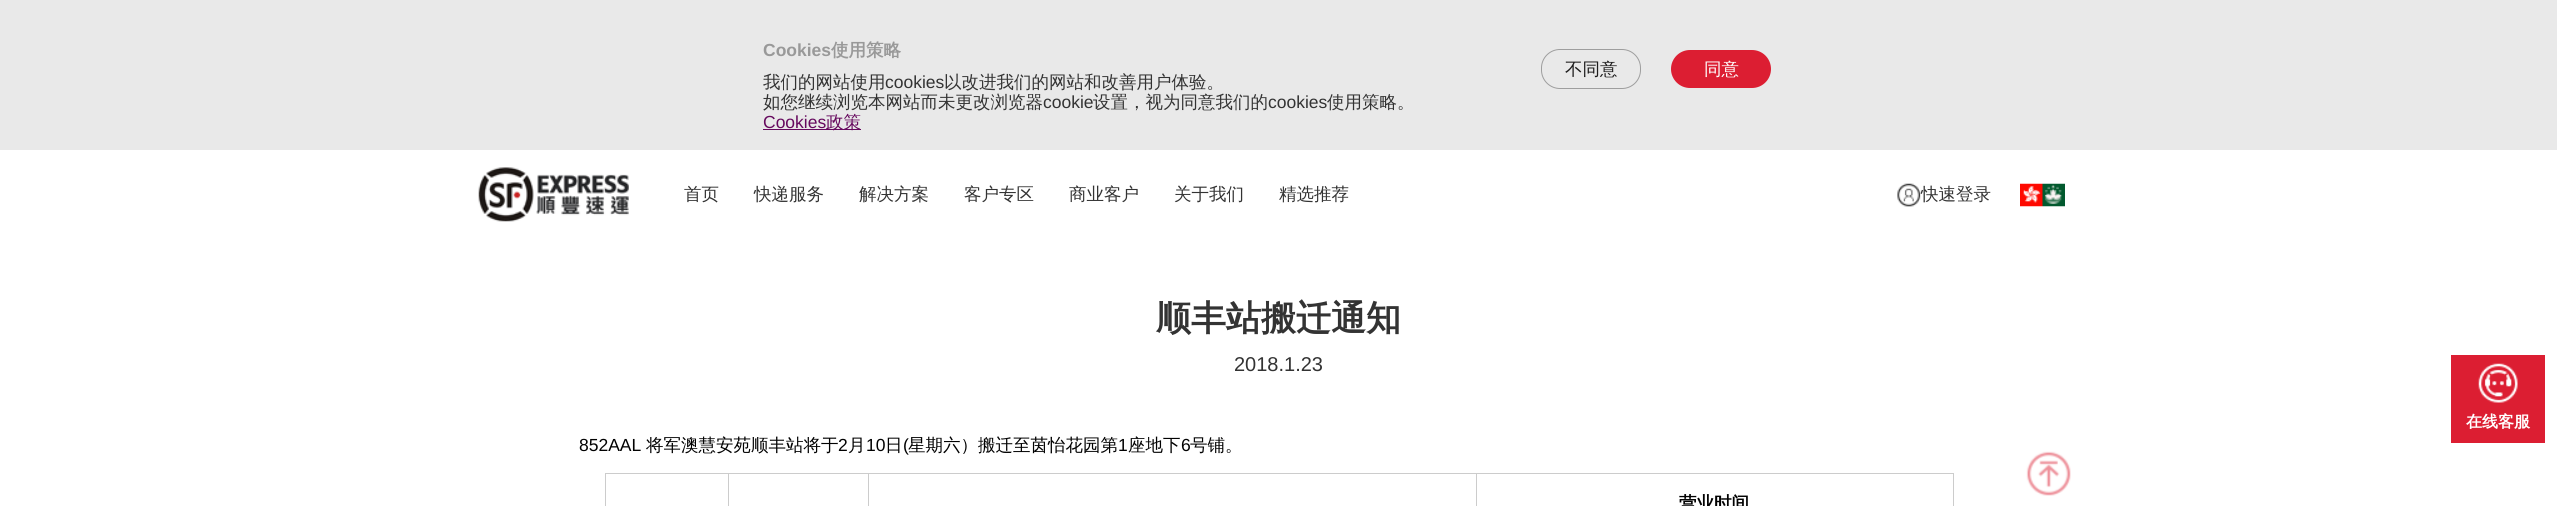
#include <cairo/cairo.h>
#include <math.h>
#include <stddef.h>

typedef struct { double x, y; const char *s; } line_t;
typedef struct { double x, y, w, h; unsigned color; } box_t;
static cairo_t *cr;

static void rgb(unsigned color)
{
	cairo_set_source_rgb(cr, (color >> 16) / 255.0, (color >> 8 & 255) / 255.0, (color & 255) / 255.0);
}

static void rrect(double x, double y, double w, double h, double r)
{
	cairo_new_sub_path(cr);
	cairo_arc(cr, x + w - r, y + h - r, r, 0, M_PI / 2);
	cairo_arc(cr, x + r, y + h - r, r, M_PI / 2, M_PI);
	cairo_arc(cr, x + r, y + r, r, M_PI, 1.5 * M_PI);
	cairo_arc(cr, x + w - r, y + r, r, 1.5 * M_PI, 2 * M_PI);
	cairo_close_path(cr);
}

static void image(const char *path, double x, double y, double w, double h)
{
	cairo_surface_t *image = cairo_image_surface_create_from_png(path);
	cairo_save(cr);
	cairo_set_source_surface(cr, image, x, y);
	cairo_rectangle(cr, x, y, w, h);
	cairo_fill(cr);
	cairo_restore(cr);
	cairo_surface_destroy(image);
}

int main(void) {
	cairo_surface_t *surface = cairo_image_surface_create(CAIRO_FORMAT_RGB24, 2557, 506);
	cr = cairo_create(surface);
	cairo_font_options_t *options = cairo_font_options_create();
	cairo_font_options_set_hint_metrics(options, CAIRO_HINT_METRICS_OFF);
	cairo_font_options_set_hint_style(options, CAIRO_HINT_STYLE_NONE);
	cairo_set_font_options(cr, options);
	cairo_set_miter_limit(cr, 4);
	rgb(0xffffff);
	cairo_paint(cr);
	rgb(0xe9e9e9);
	cairo_rectangle(cr, 0, 0, 2557, 150);
	cairo_fill(cr);
	rgb(0x66095e);
	cairo_rectangle(cr, 763, 129, 98, 1);
	cairo_fill(cr);
	rrect(1541.5, 49.5, 99, 39, 18.5);
	rgb(0x9e9e9e);
	cairo_set_line_width(cr, 1);
	cairo_stroke(cr);
	rgb(0xdc1e32);
	rrect(1671, 50, 100, 38, 19);
	cairo_fill(cr);
	image("img/1.png", 478, 167, 151, 55);
	image("img/3.png", 2020, 183, 45, 24);
	{
		static const box_t items[] = {
			{1476, 473, 478, 1, 0xcccccc},
			{1476, 473, 1, 33, 0xcccccc},
			{868, 473, 610, 1, 0xcccccc},
			{868, 473, 1, 33, 0xcccccc},
			{728, 473, 141, 1, 0xcccccc},
			{728, 473, 1, 33, 0xcccccc},
			{605, 473, 124, 1, 0xcccccc},
			{605, 473, 1, 33, 0xcccccc},
			{1953, 473, 1, 33, 0xcccccc},
			{2451, 355, 94, 88, 0xdc1e32},
		};
		for (size_t i = 0; i < sizeof items / sizeof *items; i++) {
			rgb(items[i].color);
			cairo_rectangle(cr, items[i].x, items[i].y, items[i].w, items[i].h);
			cairo_fill(cr);
		}
	}
	image("img/4.png", 2478, 363, 40, 40);
	image("img/5.png", 2026, 451, 45, 45);
	cairo_select_font_face(cr, "Liberation Sans", CAIRO_FONT_SLANT_NORMAL, CAIRO_FONT_WEIGHT_BOLD);
	cairo_set_font_size(cr, 17.5);
	rgb(0x999999);
	cairo_move_to(cr, 763, 56);
	cairo_show_text(cr, "Cookies");
	cairo_select_font_face(cr, "WenQuanYi Zen Hei", CAIRO_FONT_SLANT_NORMAL, CAIRO_FONT_WEIGHT_BOLD);
	cairo_move_to(cr, 831, 56);
	cairo_show_text(cr, "使用策略");
	cairo_select_font_face(cr, "WenQuanYi Zen Hei Medium", CAIRO_FONT_SLANT_NORMAL, CAIRO_FONT_WEIGHT_NORMAL);
	rgb(0x333333);
	cairo_move_to(cr, 763, 88);
	cairo_show_text(cr, "我们的网站使用");
	cairo_select_font_face(cr, "Liberation Sans", CAIRO_FONT_SLANT_NORMAL, CAIRO_FONT_WEIGHT_NORMAL);
	cairo_move_to(cr, 885, 88);
	cairo_show_text(cr, "cookies");
	cairo_select_font_face(cr, "WenQuanYi Zen Hei Medium", CAIRO_FONT_SLANT_NORMAL, CAIRO_FONT_WEIGHT_NORMAL);
	cairo_move_to(cr, 944, 88);
	cairo_show_text(cr, "以改进我们的网站和改善用户体验。");
	cairo_move_to(cr, 763, 108);
	cairo_show_text(cr, "如您继续浏览本网站而未更改浏览器");
	cairo_select_font_face(cr, "Liberation Sans", CAIRO_FONT_SLANT_NORMAL, CAIRO_FONT_WEIGHT_NORMAL);
	cairo_move_to(cr, 1043, 108);
	cairo_show_text(cr, "cookie");
	cairo_select_font_face(cr, "WenQuanYi Zen Hei Medium", CAIRO_FONT_SLANT_NORMAL, CAIRO_FONT_WEIGHT_NORMAL);
	cairo_move_to(cr, 1093, 108);
	cairo_show_text(cr, "设置，视为同意我们的");
	cairo_select_font_face(cr, "Liberation Sans", CAIRO_FONT_SLANT_NORMAL, CAIRO_FONT_WEIGHT_NORMAL);
	cairo_move_to(cr, 1268, 108);
	cairo_show_text(cr, "cookies");
	cairo_select_font_face(cr, "WenQuanYi Zen Hei Medium", CAIRO_FONT_SLANT_NORMAL, CAIRO_FONT_WEIGHT_NORMAL);
	cairo_move_to(cr, 1327, 108);
	cairo_show_text(cr, "使用策略。");
	cairo_select_font_face(cr, "Liberation Sans", CAIRO_FONT_SLANT_NORMAL, CAIRO_FONT_WEIGHT_NORMAL);
	rgb(0x66095e);
	cairo_move_to(cr, 763, 128);
	cairo_show_text(cr, "Cookies");
	cairo_select_font_face(cr, "WenQuanYi Zen Hei Medium", CAIRO_FONT_SLANT_NORMAL, CAIRO_FONT_WEIGHT_NORMAL);
	cairo_move_to(cr, 826, 128);
	cairo_show_text(cr, "政策");
	rgb(0x1e1d1d);
	cairo_move_to(cr, 1565, 75);
	cairo_show_text(cr, "不同意");
	rgb(0xffffff);
	cairo_move_to(cr, 1704, 75);
	cairo_show_text(cr, "同意");
	rgb(0x333333);
	{
		static const line_t items[] = {
			{684, 200, "首页"},
			{754, 200, "快递服务"},
			{859, 200, "解决方案"},
			{964, 200, "客户专区"},
			{1069, 200, "商业客户"},
			{1174, 200, "关于我们"},
			{1279, 200, "精选推荐"},
			{1921, 200, "快速登录"},
		};
		for (size_t i = 0; i < sizeof items / sizeof *items; i++) {
			cairo_move_to(cr, items[i].x, items[i].y);
			cairo_show_text(cr, items[i].s);
		}
	}
	image("img/2.png", 1897, 183, 24, 24);
	cairo_select_font_face(cr, "WenQuanYi Zen Hei", CAIRO_FONT_SLANT_NORMAL, CAIRO_FONT_WEIGHT_BOLD);
	cairo_set_font_size(cr, 35);
	cairo_move_to(cr, 1156, 330);
	cairo_show_text(cr, "顺丰站搬迁通知");
	cairo_select_font_face(cr, "Liberation Sans", CAIRO_FONT_SLANT_NORMAL, CAIRO_FONT_WEIGHT_NORMAL);
	cairo_set_font_size(cr, 20);
	cairo_move_to(cr, 1234, 371);
	cairo_show_text(cr, "2018.1.23");
	cairo_set_font_size(cr, 17.5);
	rgb(0x010101);
	cairo_move_to(cr, 579, 451);
	cairo_show_text(cr, "852AAL");
	cairo_select_font_face(cr, "WenQuanYi Zen Hei Medium", CAIRO_FONT_SLANT_NORMAL, CAIRO_FONT_WEIGHT_NORMAL);
	cairo_move_to(cr, 646, 451);
	cairo_show_text(cr, "将军澳慧安苑顺丰站将于");
	cairo_select_font_face(cr, "Liberation Sans", CAIRO_FONT_SLANT_NORMAL, CAIRO_FONT_WEIGHT_NORMAL);
	cairo_move_to(cr, 838, 451);
	cairo_show_text(cr, "2");
	cairo_select_font_face(cr, "WenQuanYi Zen Hei Medium", CAIRO_FONT_SLANT_NORMAL, CAIRO_FONT_WEIGHT_NORMAL);
	cairo_move_to(cr, 848, 451);
	cairo_show_text(cr, "月");
	cairo_select_font_face(cr, "Liberation Sans", CAIRO_FONT_SLANT_NORMAL, CAIRO_FONT_WEIGHT_NORMAL);
	cairo_move_to(cr, 866, 451);
	cairo_show_text(cr, "10");
	cairo_select_font_face(cr, "WenQuanYi Zen Hei Medium", CAIRO_FONT_SLANT_NORMAL, CAIRO_FONT_WEIGHT_NORMAL);
	cairo_move_to(cr, 885, 451);
	cairo_show_text(cr, "日");
	cairo_select_font_face(cr, "Liberation Sans", CAIRO_FONT_SLANT_NORMAL, CAIRO_FONT_WEIGHT_NORMAL);
	cairo_move_to(cr, 903, 451);
	cairo_show_text(cr, "(");
	cairo_select_font_face(cr, "WenQuanYi Zen Hei Medium", CAIRO_FONT_SLANT_NORMAL, CAIRO_FONT_WEIGHT_NORMAL);
	cairo_move_to(cr, 908, 451);
	cairo_show_text(cr, "星期六）搬迁至茵怡花园第");
	cairo_select_font_face(cr, "Liberation Sans", CAIRO_FONT_SLANT_NORMAL, CAIRO_FONT_WEIGHT_NORMAL);
	cairo_move_to(cr, 1118, 451);
	cairo_show_text(cr, "1");
	cairo_select_font_face(cr, "WenQuanYi Zen Hei Medium", CAIRO_FONT_SLANT_NORMAL, CAIRO_FONT_WEIGHT_NORMAL);
	cairo_move_to(cr, 1128, 451);
	cairo_show_text(cr, "座地下");
	cairo_select_font_face(cr, "Liberation Sans", CAIRO_FONT_SLANT_NORMAL, CAIRO_FONT_WEIGHT_NORMAL);
	cairo_move_to(cr, 1181, 451);
	cairo_show_text(cr, "6");
	cairo_select_font_face(cr, "WenQuanYi Zen Hei Medium", CAIRO_FONT_SLANT_NORMAL, CAIRO_FONT_WEIGHT_NORMAL);
	cairo_move_to(cr, 1190, 451);
	cairo_show_text(cr, "号铺。");
	cairo_select_font_face(cr, "WenQuanYi Zen Hei", CAIRO_FONT_SLANT_NORMAL, CAIRO_FONT_WEIGHT_BOLD);
	cairo_move_to(cr, 1679, 509);
	cairo_show_text(cr, "营业时间");
	cairo_set_font_size(cr, 16);
	rgb(0xffffff);
	cairo_move_to(cr, 2466, 427);
	cairo_show_text(cr, "在线客服");
	cairo_surface_write_to_png(surface, "page.png");
	cairo_font_options_destroy(options);
	cairo_destroy(cr);
	cairo_surface_destroy(surface);
	return 0;
}
